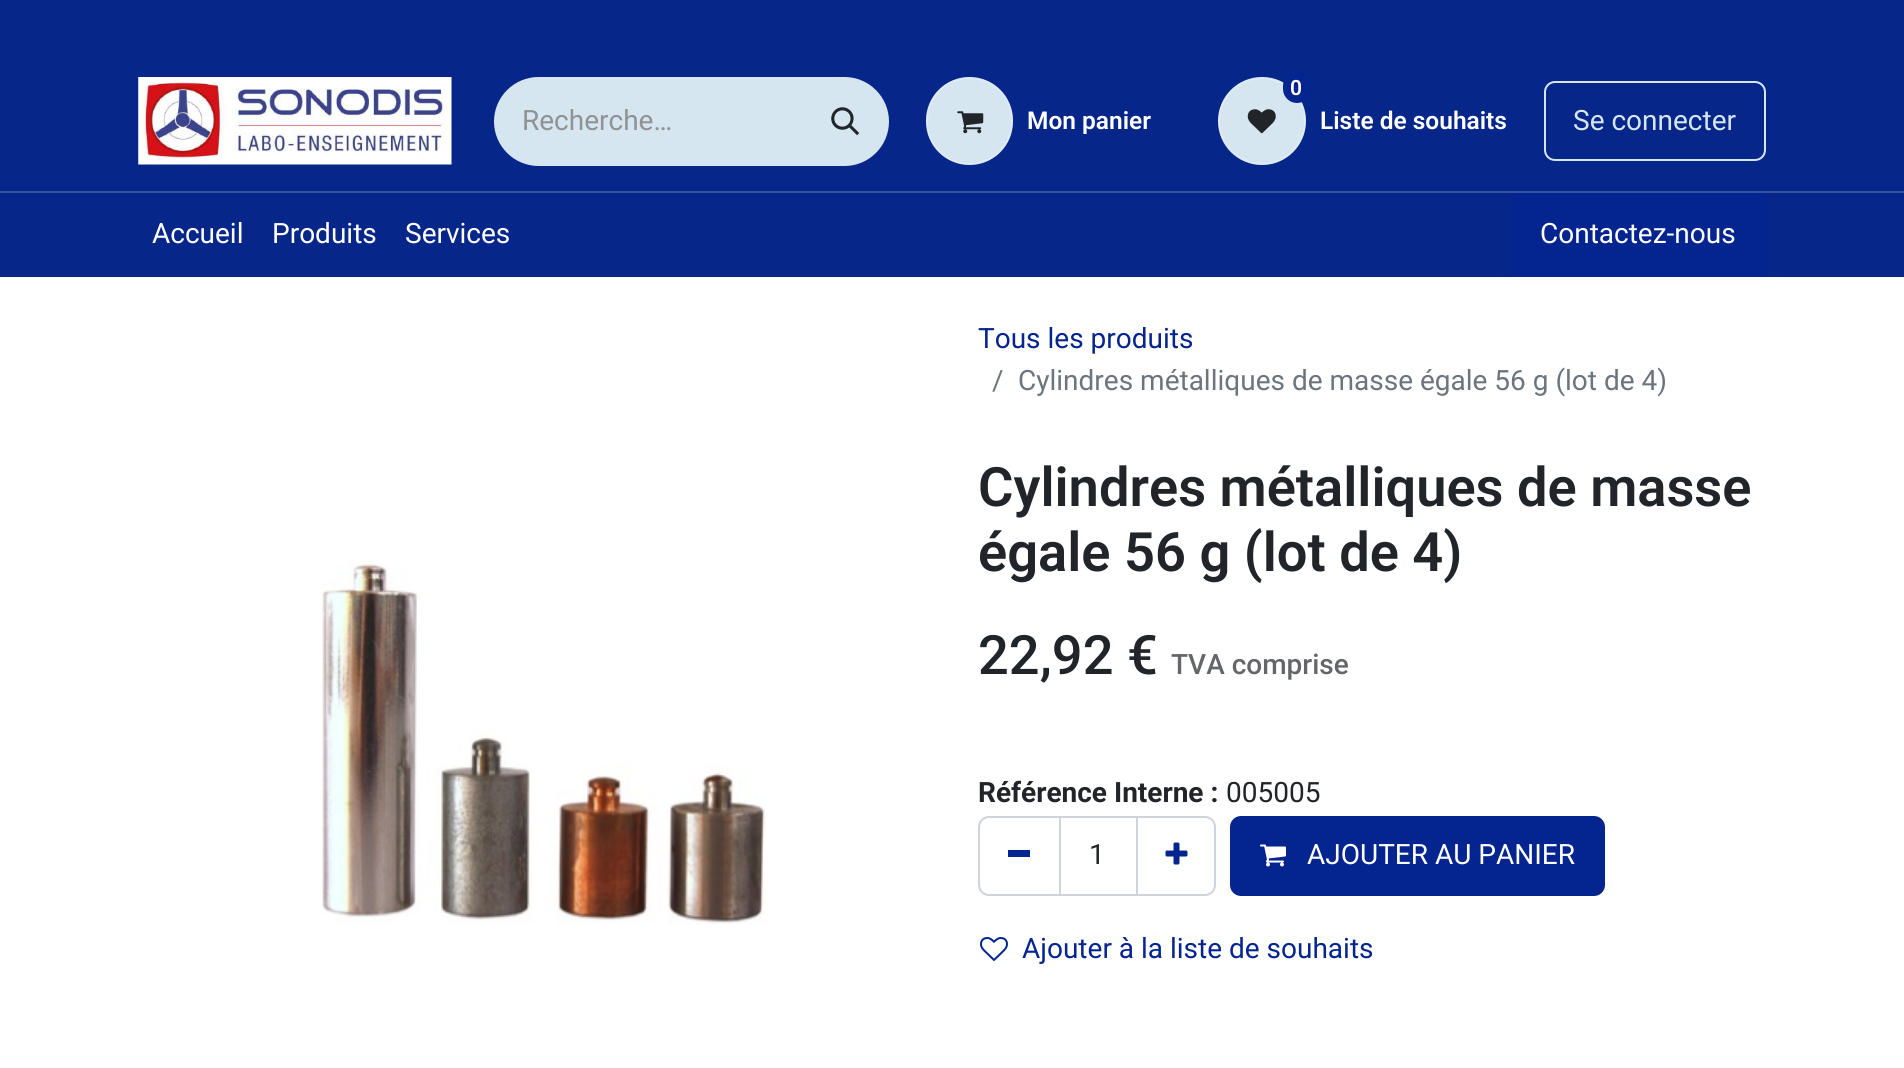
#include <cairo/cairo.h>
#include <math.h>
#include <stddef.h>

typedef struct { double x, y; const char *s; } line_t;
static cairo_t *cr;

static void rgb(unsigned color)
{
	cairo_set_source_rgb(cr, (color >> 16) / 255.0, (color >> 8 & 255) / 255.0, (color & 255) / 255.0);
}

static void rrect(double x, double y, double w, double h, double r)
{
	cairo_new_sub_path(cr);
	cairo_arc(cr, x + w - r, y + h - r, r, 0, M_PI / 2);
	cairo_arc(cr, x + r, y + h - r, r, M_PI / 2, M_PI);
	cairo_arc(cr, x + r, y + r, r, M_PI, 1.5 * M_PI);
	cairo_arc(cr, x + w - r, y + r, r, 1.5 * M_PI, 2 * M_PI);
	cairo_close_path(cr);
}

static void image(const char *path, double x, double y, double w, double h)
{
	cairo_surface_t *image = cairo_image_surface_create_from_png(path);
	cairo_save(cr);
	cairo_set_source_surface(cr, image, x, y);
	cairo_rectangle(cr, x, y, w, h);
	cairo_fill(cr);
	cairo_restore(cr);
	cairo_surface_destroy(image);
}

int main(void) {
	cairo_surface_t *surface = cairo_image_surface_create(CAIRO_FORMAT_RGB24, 1904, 1068);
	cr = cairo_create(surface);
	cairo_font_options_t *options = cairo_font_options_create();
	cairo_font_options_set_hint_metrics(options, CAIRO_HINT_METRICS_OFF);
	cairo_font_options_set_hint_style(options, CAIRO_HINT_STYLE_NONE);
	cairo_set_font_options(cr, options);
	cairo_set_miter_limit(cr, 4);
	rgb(0xffffff);
	cairo_paint(cr);
	rgb(0x062789);
	cairo_rectangle(cr, 0, 0, 1904, 277);
	cairo_fill(cr);
	image("img/1.png", 138, 77, 314, 88);
	rgb(0xd6e6f1);
	cairo_new_path(cr);
	cairo_move_to(cr, 538.5, 77);
	cairo_line_to(cr, 803, 77);
	cairo_line_to(cr, 803, 166);
	cairo_line_to(cr, 538.5, 166);
	cairo_curve_to(cr, 514, 166, 494, 146, 494, 121.5);
	cairo_curve_to(cr, 494, 97, 514, 77, 538.5, 77);
	cairo_close_path(cr);
	cairo_fill(cr);
	cairo_new_path(cr);
	cairo_move_to(cr, 802, 77);
	cairo_line_to(cr, 844.5, 77);
	cairo_curve_to(cr, 869, 77, 889, 97, 889, 121.5);
	cairo_curve_to(cr, 889, 146, 869, 166, 844.5, 166);
	cairo_line_to(cr, 802, 166);
	cairo_close_path(cr);
	cairo_fill(cr);
	image("img/2.png", 831, 107, 29, 29);
	rrect(926, 77, 87, 88, 43.5);
	cairo_fill(cr);
	rrect(927, 78, 85, 86, 42.5);
	cairo_set_source_rgba(cr, 1, 1, 1, 0.2);
	cairo_stroke(cr);
	image("img/3.png", 957, 111, 27, 23);
	rgb(0xd6e6f1);
	cairo_arc(cr, 1262, 121, 44, 0, 2 * M_PI);
	cairo_fill(cr);
	cairo_arc(cr, 1262, 121, 43, 0, 2 * M_PI);
	cairo_set_source_rgba(cr, 1, 1, 1, 0.2);
	cairo_stroke(cr);
	rgb(0x04258f);
	rrect(1283, 72, 28, 31, 14);
	cairo_fill(cr);
	image("img/4.png", 1247, 109, 29, 25);
	rrect(1545, 82, 220, 78, 10);
	rgb(0xd6e6f1);
	cairo_stroke(cr);
	rgb(0x3852a1);
	cairo_rectangle(cr, 0, 191, 1904, 2);
	cairo_fill(cr);
	rgb(0x04258f);
	cairo_rectangle(cr, 1510, 193, 256, 84);
	cairo_fill(cr);
	image("img/5.png", 322, 560, 444, 364);
	cairo_rectangle(cr, 1060, 817, 77, 78);
	rgb(0xced4da);
	cairo_stroke(cr);
	cairo_new_path(cr);
	cairo_move_to(cr, 989, 817);
	cairo_line_to(cr, 1060, 817);
	cairo_line_to(cr, 1060, 895);
	cairo_line_to(cr, 989, 895);
	cairo_curve_to(cr, 983.5, 895, 979, 890.5, 979, 885);
	cairo_line_to(cr, 979, 827);
	cairo_curve_to(cr, 979, 821.5, 983.5, 817, 989, 817);
	cairo_close_path(cr);
	cairo_stroke(cr);
	rgb(0x04258f);
	cairo_rectangle(cr, 1008, 850, 22, 7);
	cairo_fill(cr);
	cairo_new_path(cr);
	cairo_move_to(cr, 1137, 817);
	cairo_line_to(cr, 1205, 817);
	cairo_curve_to(cr, 1210.5, 817, 1215, 821.5, 1215, 827);
	cairo_line_to(cr, 1215, 885);
	cairo_curve_to(cr, 1215, 890.5, 1210.5, 895, 1205, 895);
	cairo_line_to(cr, 1137, 895);
	cairo_close_path(cr);
	rgb(0xced4da);
	cairo_stroke(cr);
	image("img/6.png", 1165, 842, 23, 23);
	rgb(0x04258f);
	rrect(1231, 817, 373, 78, 10);
	cairo_fill_preserve(cr);
	cairo_stroke(cr);
	image("img/7.png", 1260, 844, 26, 23);
	image("img/8.png", 980, 937, 28, 24);
	cairo_select_font_face(cr, "Roboto", CAIRO_FONT_SLANT_NORMAL, CAIRO_FONT_WEIGHT_NORMAL);
	cairo_set_font_size(cr, 28);
	rgb(0x909294);
	cairo_move_to(cr, 522, 130);
	cairo_show_text(cr, "Recherche…");
	cairo_select_font_face(cr, "Roboto SemiBold", CAIRO_FONT_SLANT_NORMAL, CAIRO_FONT_WEIGHT_NORMAL);
	cairo_set_font_size(cr, 24.5);
	rgb(0xffffff);
	cairo_move_to(cr, 1027, 129);
	cairo_show_text(cr, "Mon panier");
	cairo_set_font_size(cr, 21);
	cairo_move_to(cr, 1290, 95);
	cairo_show_text(cr, "0");
	cairo_set_font_size(cr, 24.5);
	cairo_move_to(cr, 1320, 129);
	cairo_show_text(cr, "Liste de souhaits");
	cairo_select_font_face(cr, "Roboto", CAIRO_FONT_SLANT_NORMAL, CAIRO_FONT_WEIGHT_NORMAL);
	cairo_set_font_size(cr, 28);
	rgb(0xd6e6f1);
	cairo_move_to(cr, 1573, 130);
	cairo_show_text(cr, "Se connecter");
	rgb(0xffffff);
	{
		static const line_t items[] = {
			{152, 243, "Accueil"},
			{272, 243, "Produits"},
			{405, 243, "Services"},
			{1540, 243, "Contactez-nous"},
		};
		for (size_t i = 0; i < sizeof items / sizeof *items; i++) {
			cairo_move_to(cr, items[i].x, items[i].y);
			cairo_show_text(cr, items[i].s);
		}
	}
	rgb(0x04258f);
	cairo_move_to(cr, 978, 348);
	cairo_show_text(cr, "Tous les produits");
	rgb(0x6c757d);
	cairo_move_to(cr, 992, 390);
	cairo_show_text(cr, "/");
	cairo_move_to(cr, 1018, 390);
	cairo_show_text(cr, "Cylindres métalliques de masse égale 56 g (lot de 4)");
	cairo_select_font_face(cr, "Roboto SemiBold", CAIRO_FONT_SLANT_NORMAL, CAIRO_FONT_WEIGHT_NORMAL);
	cairo_set_font_size(cr, 54.25);
	rgb(0x212529);
	cairo_move_to(cr, 978, 506);
	cairo_show_text(cr, "Cylindres métalliques de masse");
	cairo_move_to(cr, 978, 571);
	cairo_show_text(cr, "égale 56 g (lot de 4)");
	cairo_select_font_face(cr, "Roboto Medium", CAIRO_FONT_SLANT_NORMAL, CAIRO_FONT_WEIGHT_NORMAL);
	cairo_move_to(cr, 978, 674);
	cairo_show_text(cr, "22,92 €");
	cairo_set_font_size(cr, 28);
	rgb(0x646669);
	cairo_move_to(cr, 1171, 674);
	cairo_show_text(cr, "TVA comprise");
	cairo_select_font_face(cr, "Roboto", CAIRO_FONT_SLANT_NORMAL, CAIRO_FONT_WEIGHT_BOLD);
	rgb(0x212529);
	cairo_move_to(cr, 978, 802);
	cairo_show_text(cr, "Référence Interne :");
	cairo_select_font_face(cr, "Roboto", CAIRO_FONT_SLANT_NORMAL, CAIRO_FONT_WEIGHT_NORMAL);
	cairo_move_to(cr, 1226, 802);
	cairo_show_text(cr, "005005");
	cairo_move_to(cr, 1089, 864);
	cairo_show_text(cr, "1");
	rgb(0xffffff);
	cairo_move_to(cr, 1307, 864);
	cairo_show_text(cr, "AJOUTER AU PANIER");
	rgb(0x04258f);
	cairo_move_to(cr, 1022, 958);
	cairo_show_text(cr, "Ajouter à la liste de souhaits");
	cairo_surface_write_to_png(surface, "page.png");
	cairo_font_options_destroy(options);
	cairo_destroy(cr);
	cairo_surface_destroy(surface);
	return 0;
}
